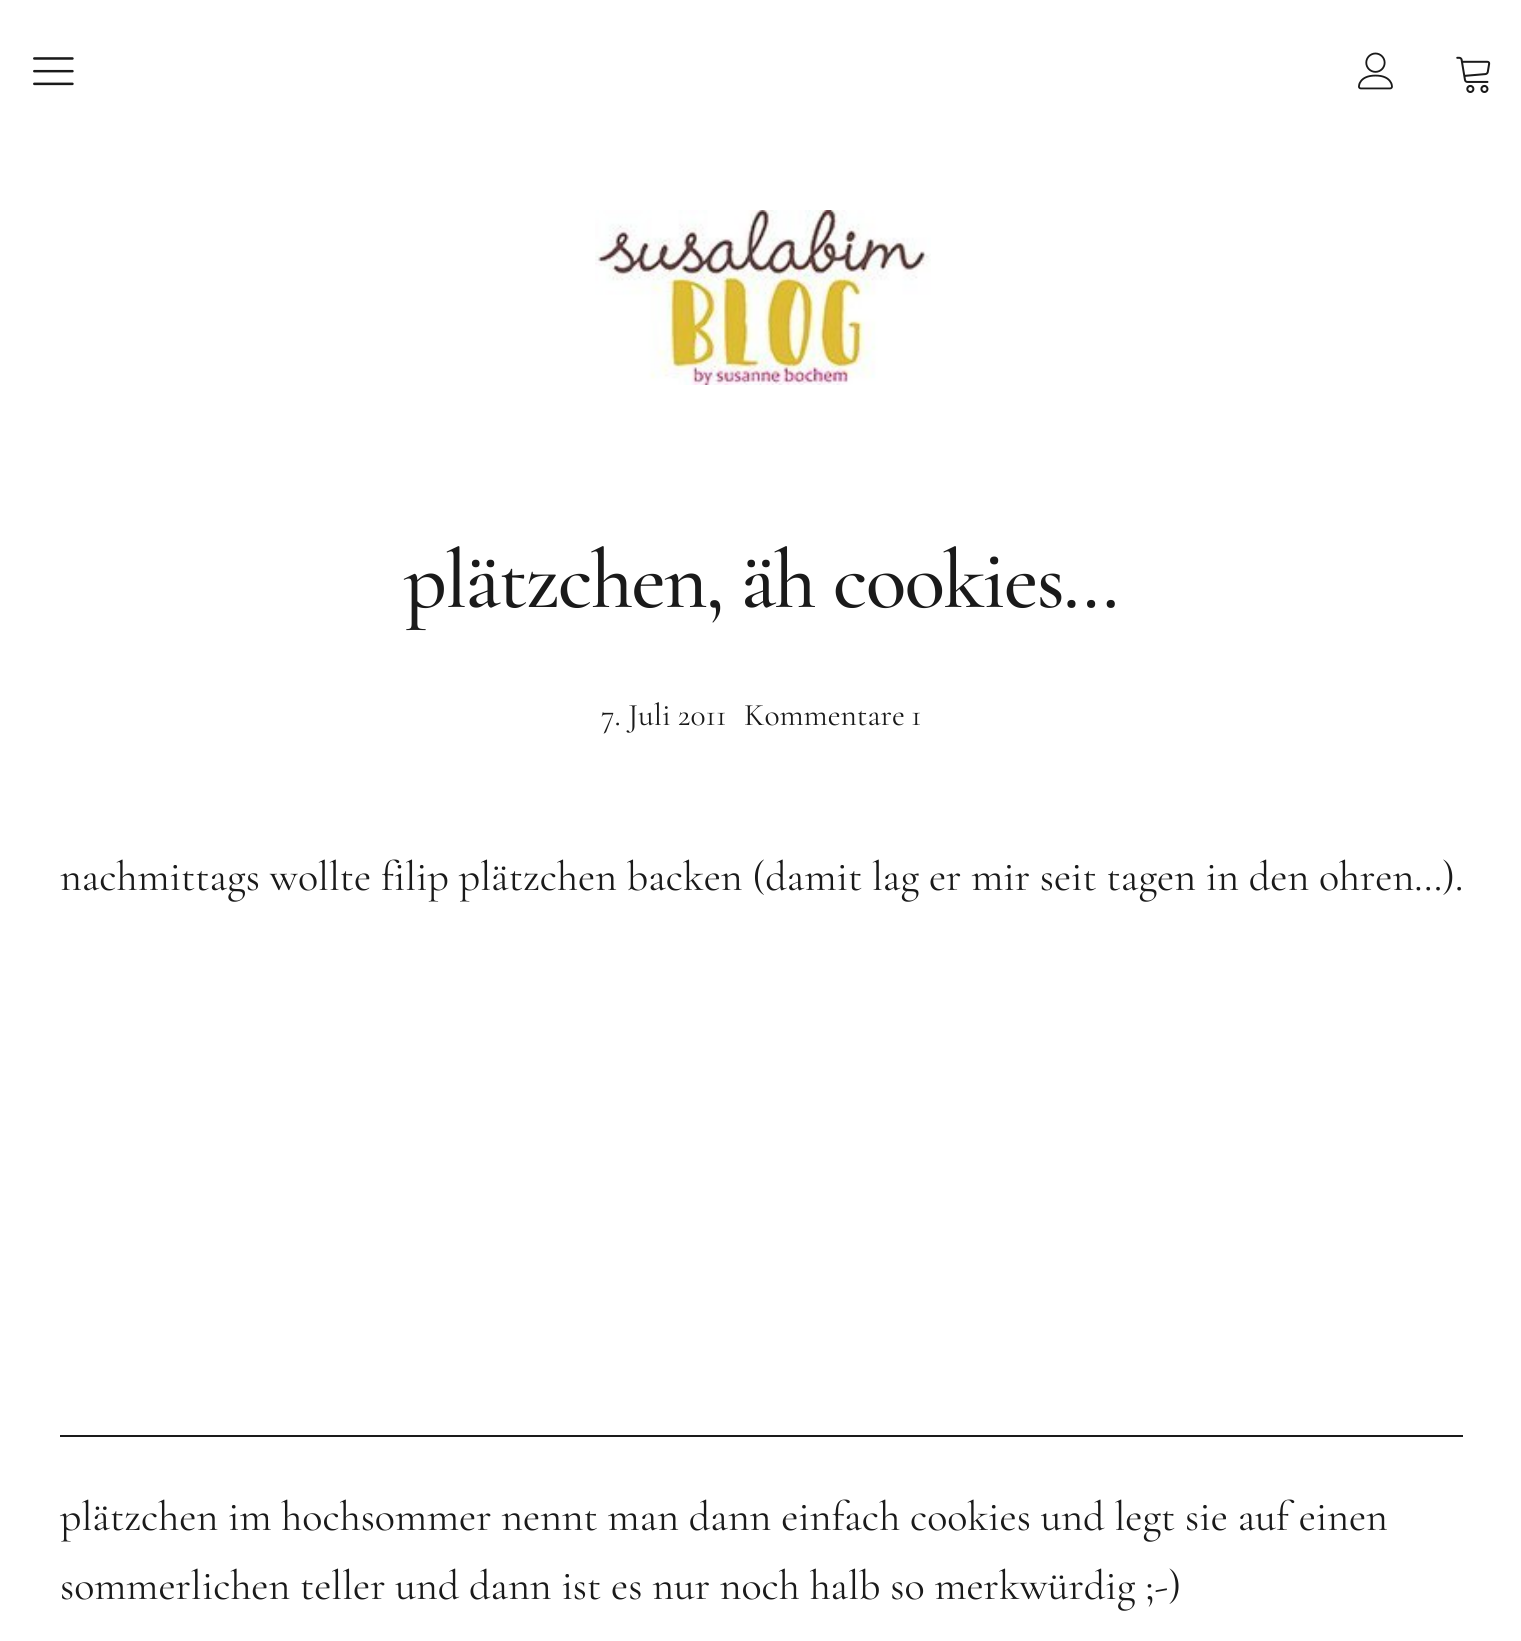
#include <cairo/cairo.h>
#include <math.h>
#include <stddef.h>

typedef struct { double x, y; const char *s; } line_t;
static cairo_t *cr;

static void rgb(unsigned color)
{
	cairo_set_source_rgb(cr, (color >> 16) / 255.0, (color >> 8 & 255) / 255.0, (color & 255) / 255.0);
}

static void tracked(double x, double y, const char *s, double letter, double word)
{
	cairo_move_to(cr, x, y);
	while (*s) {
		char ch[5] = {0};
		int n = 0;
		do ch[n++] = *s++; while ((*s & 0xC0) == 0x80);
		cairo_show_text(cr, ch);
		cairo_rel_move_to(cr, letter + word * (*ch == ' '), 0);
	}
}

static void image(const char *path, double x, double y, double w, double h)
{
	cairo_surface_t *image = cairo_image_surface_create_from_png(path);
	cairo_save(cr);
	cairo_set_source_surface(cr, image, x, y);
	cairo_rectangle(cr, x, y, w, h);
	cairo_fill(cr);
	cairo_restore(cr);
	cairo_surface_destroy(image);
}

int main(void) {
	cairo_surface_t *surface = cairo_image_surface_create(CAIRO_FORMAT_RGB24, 1521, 1641);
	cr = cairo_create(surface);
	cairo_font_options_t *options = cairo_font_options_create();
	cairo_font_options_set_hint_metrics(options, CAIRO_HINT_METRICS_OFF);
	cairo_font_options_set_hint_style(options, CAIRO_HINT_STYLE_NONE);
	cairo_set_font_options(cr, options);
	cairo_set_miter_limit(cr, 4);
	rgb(0xffffff);
	cairo_paint(cr);
	image("img/1.png", 33, 57, 41, 29);
	image("img/2.png", 1358, 52, 35, 38);
	image("img/3.png", 1456, 56, 35, 37);
	image("img/4.png", 595, 210, 336, 175);
	rgb(0x1a1a1a);
	cairo_rectangle(cr, 60, 1435, 1403, 2);
	cairo_fill(cr);
	cairo_select_font_face(cr, "Cormorant Garamond Medium", CAIRO_FONT_SLANT_NORMAL, CAIRO_FONT_WEIGHT_NORMAL);
	cairo_set_font_size(cr, 84);
	tracked(404, 607, "plätzchen, äh cookies…", -1.75, 0);
	cairo_select_font_face(cr, "Cormorant Garamond", CAIRO_FONT_SLANT_NORMAL, CAIRO_FONT_WEIGHT_NORMAL);
	cairo_set_font_size(cr, 31.5);
	{
		static const line_t items[] = {
			{601, 725, "7. Juli 2011"},
			{744, 725, "Kommentare"},
			{911, 725, "1"},
		};
		for (size_t i = 0; i < sizeof items / sizeof *items; i++) {
			cairo_move_to(cr, items[i].x, items[i].y);
			cairo_show_text(cr, items[i].s);
		}
	}
	cairo_set_font_size(cr, 42);
	{
		static const line_t items[] = {
			{60, 890, "nachmittags wollte filip plätzchen backen (damit lag er mir seit tagen in den ohren…)."},
			{60, 1530, "plätzchen im hochsommer nennt man dann einfach cookies und legt sie auf einen"},
			{60, 1599, "sommerlichen teller und dann ist es nur noch halb so merkwürdig ;-)"},
		};
		for (size_t i = 0; i < sizeof items / sizeof *items; i++) {
			cairo_move_to(cr, items[i].x, items[i].y);
			cairo_show_text(cr, items[i].s);
		}
	}
	cairo_surface_write_to_png(surface, "page.png");
	cairo_font_options_destroy(options);
	cairo_destroy(cr);
	cairo_surface_destroy(surface);
	return 0;
}
